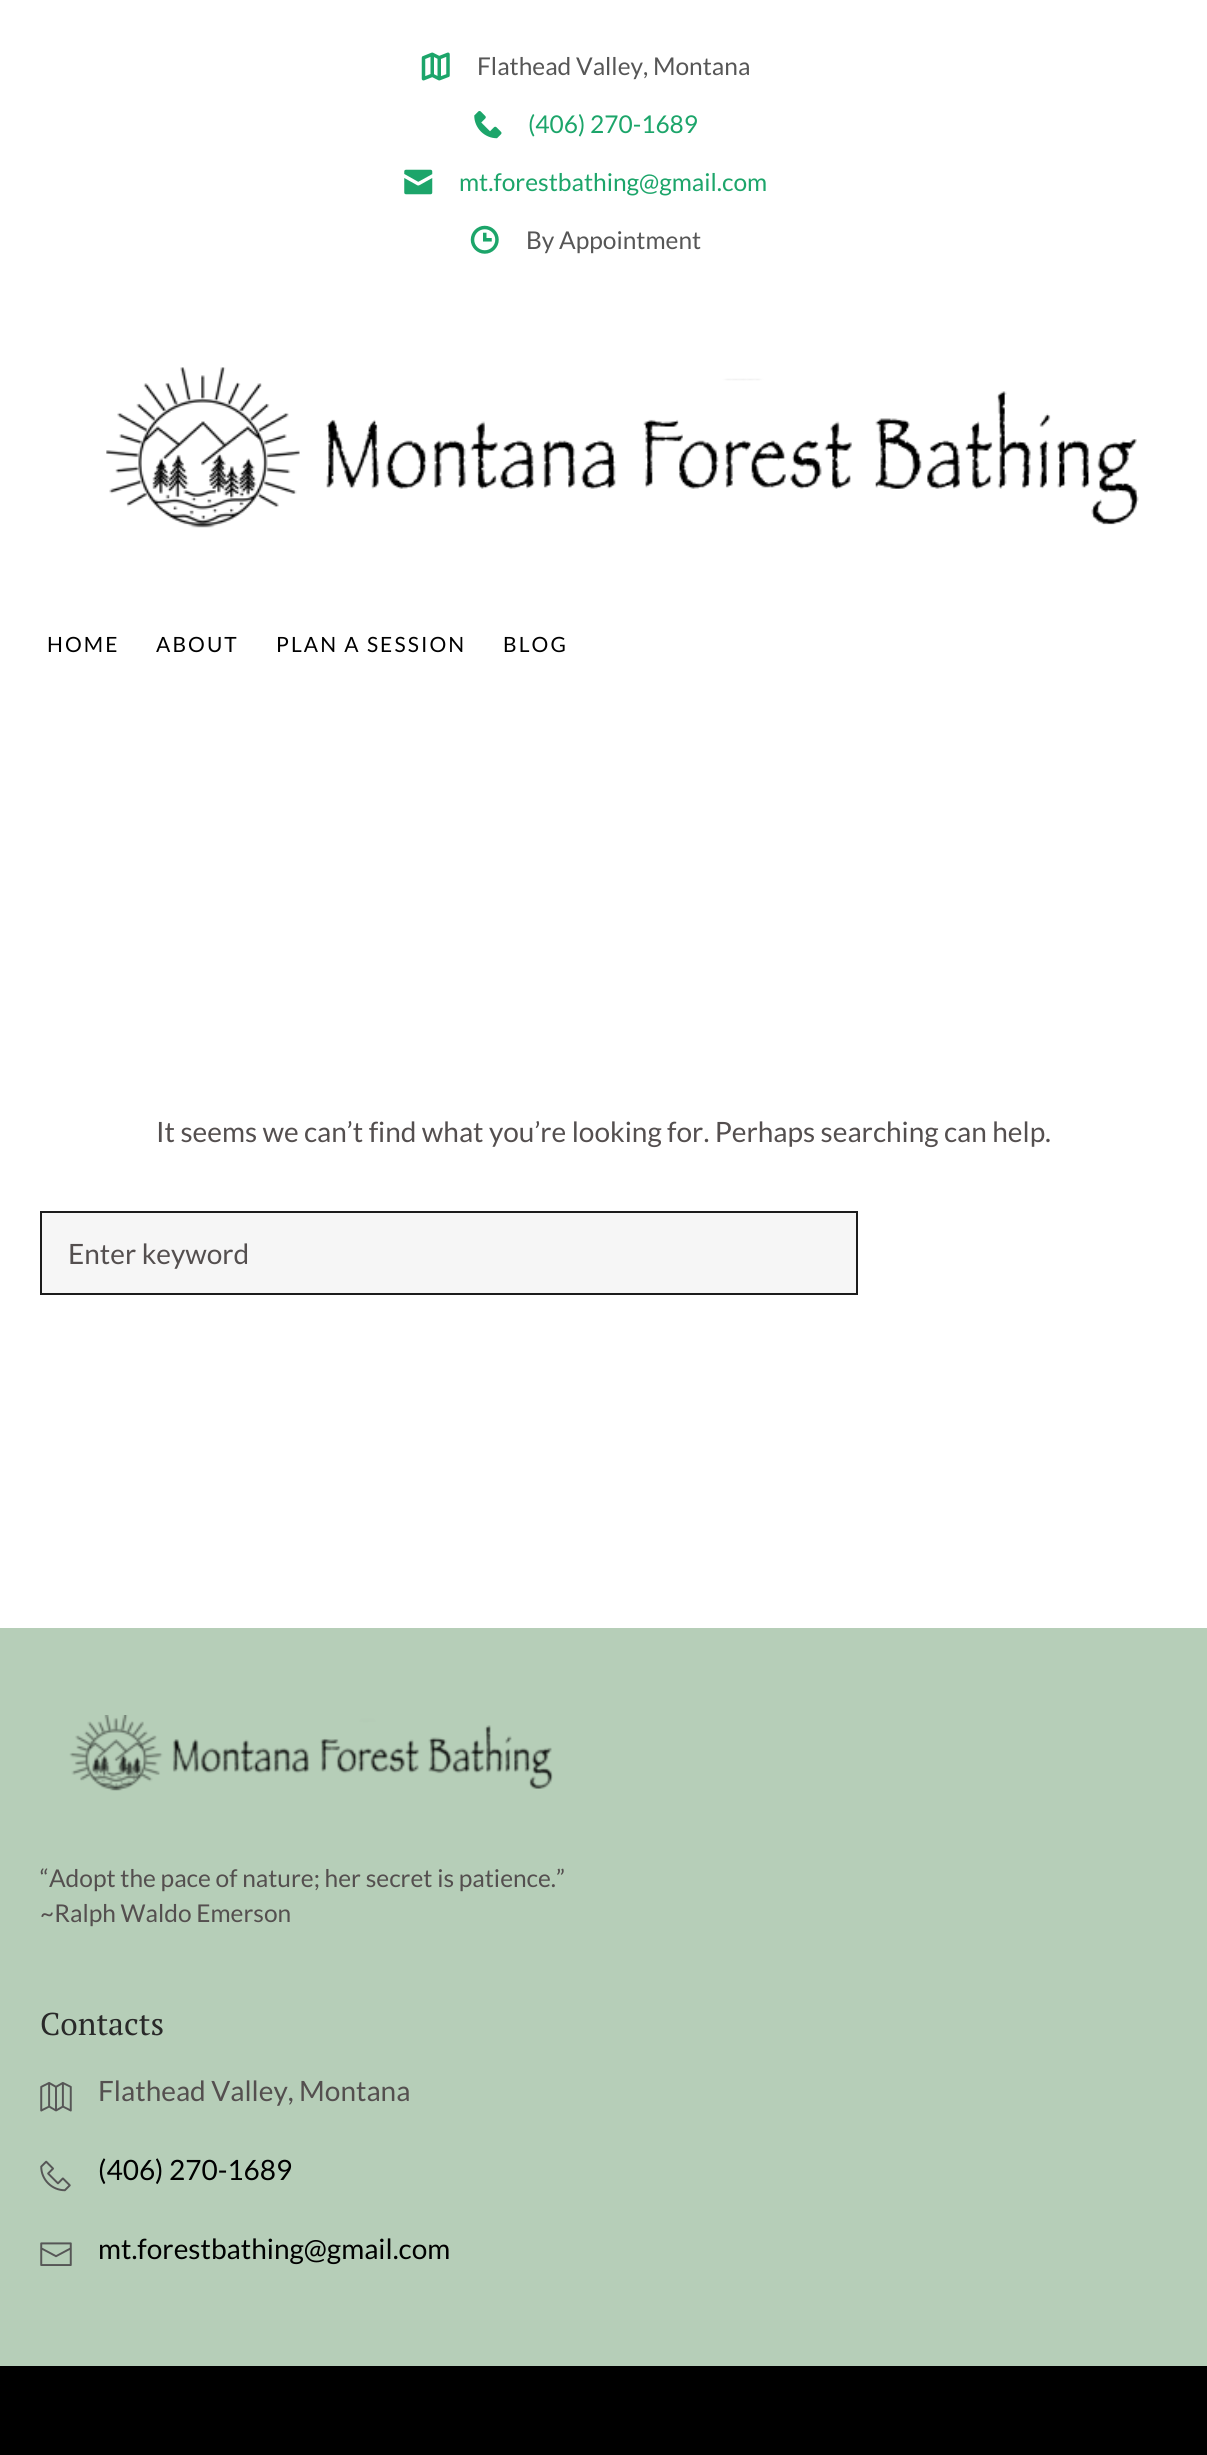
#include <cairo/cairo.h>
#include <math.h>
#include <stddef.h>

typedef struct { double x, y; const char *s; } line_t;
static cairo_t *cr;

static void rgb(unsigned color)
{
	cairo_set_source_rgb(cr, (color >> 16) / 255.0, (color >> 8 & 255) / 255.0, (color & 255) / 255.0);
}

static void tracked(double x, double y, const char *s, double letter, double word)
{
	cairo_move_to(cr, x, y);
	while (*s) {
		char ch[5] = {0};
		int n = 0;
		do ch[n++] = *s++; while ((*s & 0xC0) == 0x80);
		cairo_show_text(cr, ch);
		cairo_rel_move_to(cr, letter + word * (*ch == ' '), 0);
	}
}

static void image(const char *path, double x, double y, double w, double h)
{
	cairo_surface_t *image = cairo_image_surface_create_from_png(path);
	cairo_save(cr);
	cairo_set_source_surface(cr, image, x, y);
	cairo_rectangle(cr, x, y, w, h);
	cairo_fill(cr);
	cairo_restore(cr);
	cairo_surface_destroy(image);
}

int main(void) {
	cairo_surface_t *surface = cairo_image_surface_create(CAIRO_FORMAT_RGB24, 1207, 2455);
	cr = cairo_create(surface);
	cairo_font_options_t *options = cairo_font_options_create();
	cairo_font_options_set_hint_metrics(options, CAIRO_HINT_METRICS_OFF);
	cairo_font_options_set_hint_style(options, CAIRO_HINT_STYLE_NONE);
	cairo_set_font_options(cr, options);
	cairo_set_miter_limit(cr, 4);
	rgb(0xffffff);
	cairo_paint(cr);
	image("img/1.png", 421, 52, 29, 29);
	image("img/2.png", 474, 111, 28, 28);
	image("img/3.png", 404, 169, 29, 26);
	image("img/4.png", 470, 225, 29, 29);
	image("img/5.png", 106, 367, 1033, 161);
	rgb(0xf6f6f6);
	cairo_rectangle(cr, 41, 1212, 816, 82);
	cairo_fill_preserve(cr);
	rgb(0x1c1c1c);
	cairo_stroke(cr);
	rgb(0x000000);
	cairo_rectangle(cr, 0, 2366, 1207, 89);
	cairo_fill(cr);
	rgb(0xb6ceb8);
	cairo_rectangle(cr, 0, 1628, 1207, 738);
	cairo_fill(cr);
	image("img/6.png", 69, 1715, 484, 76);
	image("img/7.png", 40, 2082, 32, 30);
	image("img/8.png", 40, 2160, 31, 32);
	image("img/9.png", 40, 2242, 32, 24);
	cairo_select_font_face(cr, "Lato", CAIRO_FONT_SLANT_NORMAL, CAIRO_FONT_WEIGHT_NORMAL);
	cairo_set_font_size(cr, 24.5);
	rgb(0x565656);
	cairo_move_to(cr, 477, 75);
	cairo_show_text(cr, "Flathead Valley, Montana");
	rgb(0x1ca56a);
	cairo_move_to(cr, 528, 133);
	cairo_show_text(cr, "(406) 270-1689");
	cairo_move_to(cr, 459, 191);
	cairo_show_text(cr, "mt.forestbathing@gmail.com");
	rgb(0x565656);
	cairo_move_to(cr, 526, 249);
	cairo_show_text(cr, "By Appointment");
	cairo_set_font_size(cr, 21);
	rgb(0x000000);
	{
		static const line_t items[] = {
			{47, 652, "HOME"},
			{156, 652, "ABOUT"},
			{276, 652, "PLAN A SESSION"},
			{503, 652, "BLOG"},
		};
		for (size_t i = 0; i < sizeof items / sizeof *items; i++) {
			tracked(items[i].x, items[i].y, items[i].s, 2.1, 0);
		}
	}
	cairo_set_font_size(cr, 28);
	rgb(0x544f4f);
	cairo_move_to(cr, 156, 1142);
	cairo_show_text(cr, "It seems we can’t find what you’re looking for. Perhaps searching can help.");
	cairo_move_to(cr, 68, 1264);
	cairo_show_text(cr, "Enter keyword");
	cairo_set_font_size(cr, 24.5);
	cairo_move_to(cr, 40, 1887);
	cairo_show_text(cr, "“Adopt the pace of nature; her secret is patience.”");
	cairo_move_to(cr, 40, 1922);
	cairo_show_text(cr, "~Ralph Waldo Emerson");
	cairo_select_font_face(cr, "PT Serif", CAIRO_FONT_SLANT_NORMAL, CAIRO_FONT_WEIGHT_NORMAL);
	cairo_set_font_size(cr, 31.5);
	rgb(0x292929);
	cairo_move_to(cr, 40, 2035);
	cairo_show_text(cr, "Contacts");
	cairo_select_font_face(cr, "Lato", CAIRO_FONT_SLANT_NORMAL, CAIRO_FONT_WEIGHT_NORMAL);
	cairo_set_font_size(cr, 28);
	rgb(0x544f4f);
	cairo_move_to(cr, 98, 2101);
	cairo_show_text(cr, "Flathead Valley, Montana");
	rgb(0x000000);
	cairo_move_to(cr, 98, 2180);
	cairo_show_text(cr, "(406) 270-1689");
	cairo_move_to(cr, 98, 2259);
	cairo_show_text(cr, "mt.forestbathing@gmail.com");
	cairo_surface_write_to_png(surface, "page.png");
	cairo_font_options_destroy(options);
	cairo_destroy(cr);
	cairo_surface_destroy(surface);
	return 0;
}
